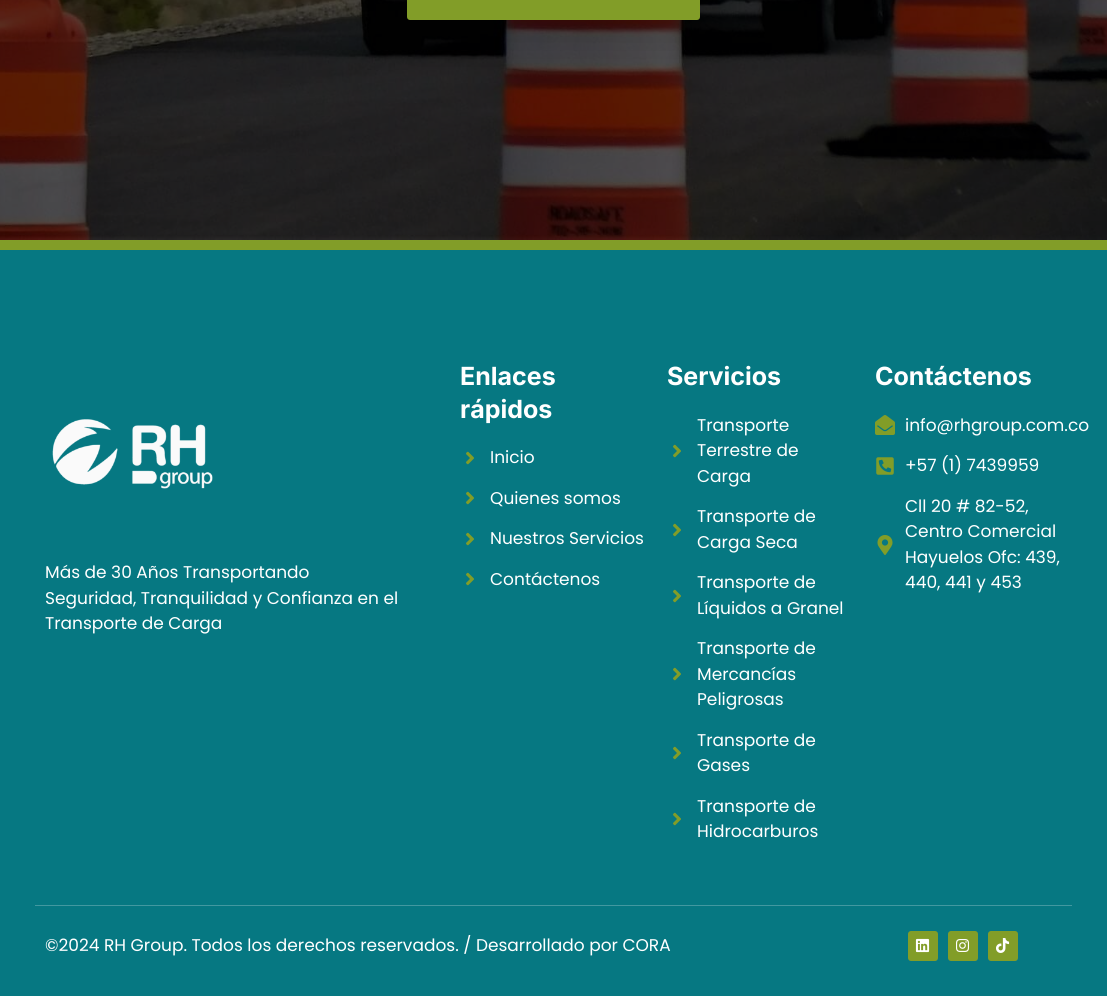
#include <cairo/cairo.h>
#include <math.h>
#include <stddef.h>

typedef struct { double x, y; const char *s; } line_t;
static cairo_t *cr;

static void rgb(unsigned color)
{
	cairo_set_source_rgb(cr, (color >> 16) / 255.0, (color >> 8 & 255) / 255.0, (color & 255) / 255.0);
}

static void rrect(double x, double y, double w, double h, double r)
{
	cairo_new_sub_path(cr);
	cairo_arc(cr, x + w - r, y + h - r, r, 0, M_PI / 2);
	cairo_arc(cr, x + r, y + h - r, r, M_PI / 2, M_PI);
	cairo_arc(cr, x + r, y + r, r, M_PI, 1.5 * M_PI);
	cairo_arc(cr, x + w - r, y + r, r, 1.5 * M_PI, 2 * M_PI);
	cairo_close_path(cr);
}

static void soft_shadow(double x, double y, double w, double h, double r, double blur, double alpha)
{
	cairo_push_group_with_content(cr, CAIRO_CONTENT_ALPHA);
	cairo_set_operator(cr, CAIRO_OPERATOR_SOURCE);
	for (int i = 15; i >= -15 && fmin(w, h) + blur * i / 3 > 0; i -= 2) {
		double e = blur * i / 6;
		cairo_set_source_rgba(cr, 0, 0, 0, alpha * erfc((i - 1) / 8.5) / 2);
		rrect(x - e, y - e, w + 2 * e, h + 2 * e, fmax(0, fmin(r + e + blur * .6, fmin(w, h) / 2 + e)));
		cairo_fill(cr);
	}
	cairo_pattern_t *soft = cairo_pop_group(cr);
	cairo_mask(cr, soft);
	cairo_pattern_destroy(soft);
}

static void image(const char *path, double x, double y, double w, double h)
{
	cairo_surface_t *image = cairo_image_surface_create_from_png(path);
	cairo_save(cr);
	cairo_set_source_surface(cr, image, x, y);
	cairo_rectangle(cr, x, y, w, h);
	cairo_fill(cr);
	cairo_restore(cr);
	cairo_surface_destroy(image);
}

int main(void) {
	cairo_surface_t *surface = cairo_image_surface_create(CAIRO_FORMAT_RGB24, 1107, 996);
	cr = cairo_create(surface);
	cairo_font_options_t *options = cairo_font_options_create();
	cairo_font_options_set_hint_metrics(options, CAIRO_HINT_METRICS_OFF);
	cairo_font_options_set_hint_style(options, CAIRO_HINT_STYLE_NONE);
	cairo_set_font_options(cr, options);
	cairo_set_miter_limit(cr, 4);
	rgb(0xffffff);
	cairo_paint(cr);
	image("img/1.png", 0, 0, 1107, 240);
	rgb(0x000000);
	soft_shadow(407, -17, 293, 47, 3, 25, 0.2);
	rgb(0x829d28);
	rrect(407, -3, 293, 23, 3);
	cairo_fill(cr);
	rgb(0x067882);
	cairo_rectangle(cr, 0, 250, 1107, 746);
	cairo_fill(cr);
	rgb(0x829d28);
	cairo_rectangle(cr, 0, 240, 1107, 10);
	cairo_fill(cr);
	image("img/2.png", 466, 451, 8, 14);
	image("img/2.png", 466, 491, 8, 14);
	image("img/2.png", 466, 532, 8, 14);
	image("img/2.png", 466, 572, 8, 14);
	image("img/2.png", 673, 444, 8, 14);
	image("img/2.png", 673, 523, 8, 14);
	image("img/2.png", 673, 589, 8, 14);
	image("img/2.png", 673, 667, 8, 14);
	image("img/2.png", 673, 746, 8, 14);
	image("img/2.png", 673, 812, 8, 14);
	image("img/3.png", 875, 415, 20, 20);
	image("img/4.png", 876, 457, 18, 18);
	image("img/5.png", 877, 535, 16, 20);
	image("img/6.png", 52, 419, 161, 70);
	rgb(0x4298a0);
	cairo_rectangle(cr, 35, 905, 1037, 1);
	cairo_fill(cr);
	rgb(0x829d28);
	rrect(908, 931, 30, 30, 3);
	cairo_fill(cr);
	image("img/7.png", 915, 938, 15, 15);
	rrect(948, 931, 30, 30, 3);
	cairo_fill(cr);
	image("img/8.png", 956, 939, 14, 13);
	rrect(988, 931, 30, 30, 3);
	cairo_fill(cr);
	image("img/9.png", 996, 938, 14, 15);
	cairo_select_font_face(cr, "Inter", CAIRO_FONT_SLANT_NORMAL, CAIRO_FONT_WEIGHT_BOLD);
	cairo_set_font_size(cr, 25);
	rgb(0xffffff);
	cairo_move_to(cr, 460, 385);
	cairo_show_text(cr, "Enlaces");
	cairo_move_to(cr, 460, 418);
	cairo_show_text(cr, "rápidos");
	cairo_select_font_face(cr, "Poppins", CAIRO_FONT_SLANT_NORMAL, CAIRO_FONT_WEIGHT_NORMAL);
	cairo_set_font_size(cr, 17);
	{
		static const line_t items[] = {
			{490, 463, "Inicio"},
			{490, 504, "Quienes somos"},
			{490, 544, "Nuestros Servicios"},
			{490, 585, "Contáctenos"},
		};
		for (size_t i = 0; i < sizeof items / sizeof *items; i++) {
			cairo_move_to(cr, items[i].x, items[i].y);
			cairo_show_text(cr, items[i].s);
		}
	}
	cairo_select_font_face(cr, "Inter", CAIRO_FONT_SLANT_NORMAL, CAIRO_FONT_WEIGHT_BOLD);
	cairo_set_font_size(cr, 25);
	cairo_move_to(cr, 667, 385);
	cairo_show_text(cr, "Servicios");
	cairo_select_font_face(cr, "Poppins", CAIRO_FONT_SLANT_NORMAL, CAIRO_FONT_WEIGHT_NORMAL);
	cairo_set_font_size(cr, 17);
	{
		static const line_t items[] = {
			{697, 431, "Transporte"},
			{697, 456, "Terrestre de"},
			{697, 482, "Carga"},
			{697, 522, "Transporte de"},
			{697, 548, "Carga Seca"},
			{697, 588, "Transporte de"},
			{697, 614, "Líquidos a Granel"},
			{697, 654, "Transporte de"},
			{697, 680, "Mercancías"},
			{697, 705, "Peligrosas"},
			{697, 746, "Transporte de"},
			{697, 771, "Gases"},
			{697, 812, "Transporte de"},
			{697, 837, "Hidrocarburos"},
		};
		for (size_t i = 0; i < sizeof items / sizeof *items; i++) {
			cairo_move_to(cr, items[i].x, items[i].y);
			cairo_show_text(cr, items[i].s);
		}
	}
	cairo_select_font_face(cr, "Inter", CAIRO_FONT_SLANT_NORMAL, CAIRO_FONT_WEIGHT_BOLD);
	cairo_set_font_size(cr, 25);
	cairo_move_to(cr, 875, 385);
	cairo_show_text(cr, "Contáctenos");
	cairo_select_font_face(cr, "Poppins", CAIRO_FONT_SLANT_NORMAL, CAIRO_FONT_WEIGHT_NORMAL);
	cairo_set_font_size(cr, 17);
	{
		static const line_t items[] = {
			{905, 431, "info@rhgroup.com.co"},
			{905, 471, "+57 (1) 7439959"},
			{905, 512, "Cll 20 # 82-52,"},
			{905, 537, "Centro Comercial"},
			{905, 563, "Hayuelos Ofc: 439,"},
			{905, 588, "440, 441 y 453"},
			{45, 578, "Más de 30 Años Transportando"},
			{45, 604, "Seguridad, Tranquilidad y Confianza en el"},
			{45, 629, "Transporte de Carga"},
			{45, 951, "©2024 RH Group. Todos los derechos reservados. / Desarrollado por CORA"},
		};
		for (size_t i = 0; i < sizeof items / sizeof *items; i++) {
			cairo_move_to(cr, items[i].x, items[i].y);
			cairo_show_text(cr, items[i].s);
		}
	}
	cairo_surface_write_to_png(surface, "page.png");
	cairo_font_options_destroy(options);
	cairo_destroy(cr);
	cairo_surface_destroy(surface);
	return 0;
}
